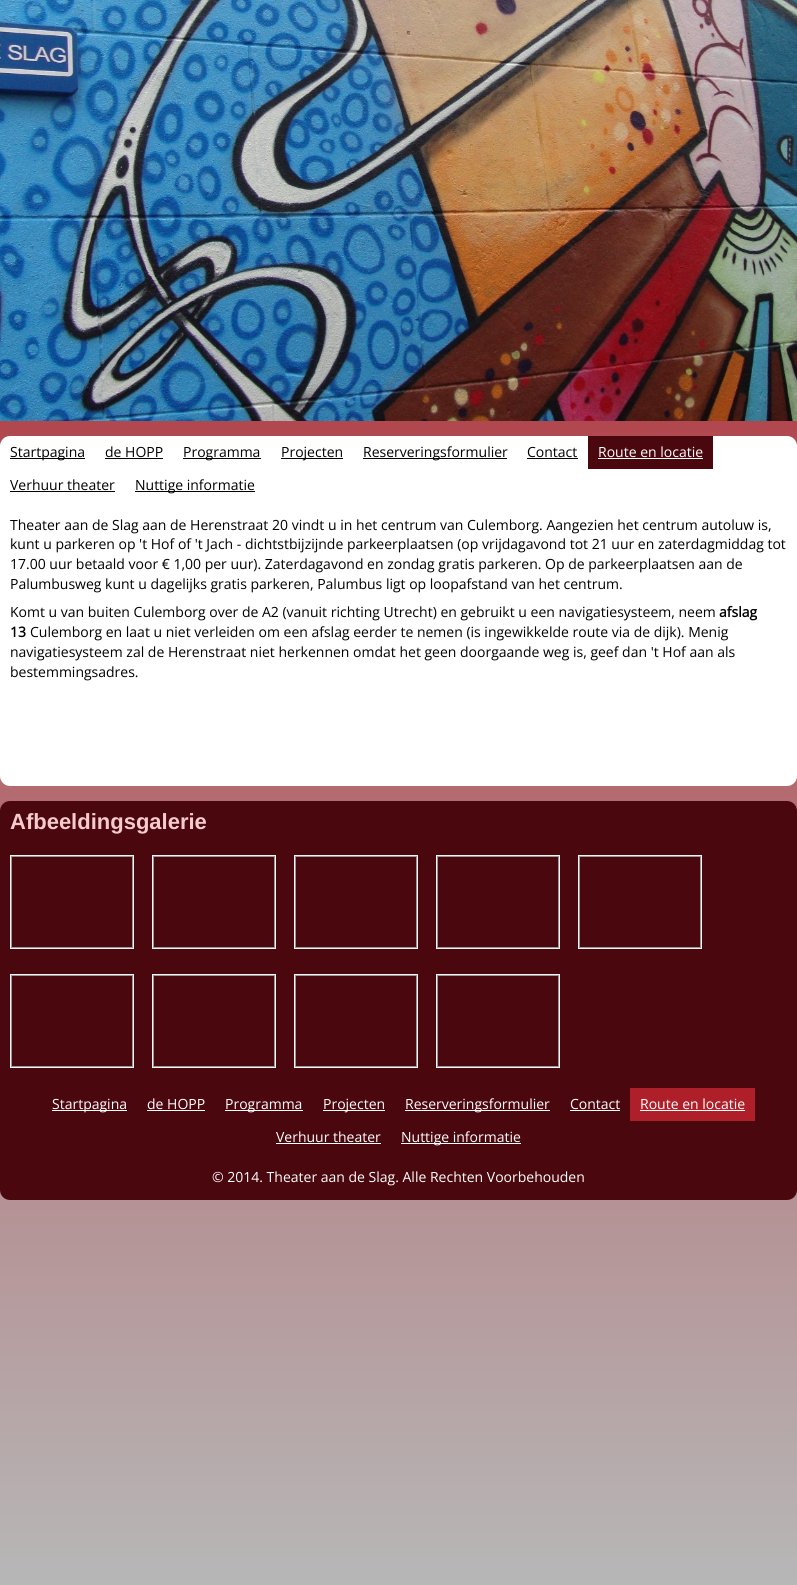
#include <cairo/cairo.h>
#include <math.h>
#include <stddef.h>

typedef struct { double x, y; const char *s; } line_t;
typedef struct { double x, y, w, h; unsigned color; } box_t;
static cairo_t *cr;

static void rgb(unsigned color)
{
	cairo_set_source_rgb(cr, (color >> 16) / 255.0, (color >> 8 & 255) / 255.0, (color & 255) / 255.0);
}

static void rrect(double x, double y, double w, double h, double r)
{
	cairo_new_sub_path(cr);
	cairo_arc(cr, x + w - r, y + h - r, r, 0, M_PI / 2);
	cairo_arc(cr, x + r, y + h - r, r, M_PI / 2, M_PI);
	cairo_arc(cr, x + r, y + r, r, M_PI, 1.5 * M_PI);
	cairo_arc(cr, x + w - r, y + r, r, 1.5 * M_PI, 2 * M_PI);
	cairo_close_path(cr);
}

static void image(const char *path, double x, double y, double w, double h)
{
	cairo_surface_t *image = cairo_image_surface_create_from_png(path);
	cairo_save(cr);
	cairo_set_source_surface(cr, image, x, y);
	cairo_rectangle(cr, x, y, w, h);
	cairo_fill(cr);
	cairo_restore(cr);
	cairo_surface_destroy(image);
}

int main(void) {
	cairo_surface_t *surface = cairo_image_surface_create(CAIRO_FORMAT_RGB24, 797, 1585);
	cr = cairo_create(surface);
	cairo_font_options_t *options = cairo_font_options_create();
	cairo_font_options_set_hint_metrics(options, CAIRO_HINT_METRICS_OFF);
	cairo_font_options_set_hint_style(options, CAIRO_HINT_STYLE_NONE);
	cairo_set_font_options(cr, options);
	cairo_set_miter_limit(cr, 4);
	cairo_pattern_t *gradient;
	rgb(0xffffff);
	cairo_paint(cr);
	gradient = cairo_pattern_create_linear(399, 1585, 399, 0);
	cairo_pattern_add_color_stop_rgba(gradient, 0, 0.718, 0.718, 0.718, 1);
	cairo_pattern_add_color_stop_rgba(gradient, 1, 0.686, 0.122, 0.161, 1);
	cairo_set_source(cr, gradient);
	cairo_pattern_destroy(gradient);
	cairo_rectangle(cr, 0, 421, 797, 1164);
	cairo_fill(cr);
	image("img/1.png", 0, 0, 797, 421);
	rgb(0xffffff);
	rrect(0, 436, 797, 350, 10);
	cairo_fill(cr);
	{
		static const box_t items[] = {
			{10, 458, 75, 1, 0x000000},
			{105, 458, 58, 1, 0x000000},
			{183, 458, 78, 1, 0x000000},
			{281, 458, 62, 1, 0x000000},
			{363, 458, 144, 1, 0x000000},
			{527, 458, 51, 1, 0x000000},
			{588, 436, 125, 33, 0x4b070e},
			{598, 458, 105, 1, 0xffffff},
			{10, 491, 105, 1, 0x000000},
			{135, 491, 120, 1, 0x000000},
		};
		for (size_t i = 0; i < sizeof items / sizeof *items; i++) {
			rgb(items[i].color);
			cairo_rectangle(cr, items[i].x, items[i].y, items[i].w, items[i].h);
			cairo_fill(cr);
		}
	}
	rgb(0x4b070e);
	rrect(0, 801, 797, 399, 10);
	cairo_fill(cr);
	cairo_rectangle(cr, 10.5, 855.5, 123, 93);
	rgb(0xf5f5f5);
	cairo_set_line_width(cr, 1);
	cairo_stroke(cr);
	cairo_rectangle(cr, 11.5, 856.5, 121, 91);
	rgb(0x989898);
	cairo_stroke(cr);
	cairo_rectangle(cr, 152.5, 855.5, 123, 93);
	rgb(0xf5f5f5);
	cairo_stroke(cr);
	cairo_rectangle(cr, 153.5, 856.5, 121, 91);
	rgb(0x989898);
	cairo_stroke(cr);
	cairo_rectangle(cr, 294.5, 855.5, 123, 93);
	rgb(0xf5f5f5);
	cairo_stroke(cr);
	cairo_rectangle(cr, 295.5, 856.5, 121, 91);
	rgb(0x989898);
	cairo_stroke(cr);
	cairo_rectangle(cr, 436.5, 855.5, 123, 93);
	rgb(0xf5f5f5);
	cairo_stroke(cr);
	cairo_rectangle(cr, 437.5, 856.5, 121, 91);
	rgb(0x989898);
	cairo_stroke(cr);
	cairo_rectangle(cr, 578.5, 855.5, 123, 93);
	rgb(0xf5f5f5);
	cairo_stroke(cr);
	cairo_rectangle(cr, 579.5, 856.5, 121, 91);
	rgb(0x989898);
	cairo_stroke(cr);
	cairo_rectangle(cr, 10.5, 974.5, 123, 93);
	rgb(0xf5f5f5);
	cairo_stroke(cr);
	cairo_rectangle(cr, 11.5, 975.5, 121, 91);
	rgb(0x989898);
	cairo_stroke(cr);
	cairo_rectangle(cr, 152.5, 974.5, 123, 93);
	rgb(0xf5f5f5);
	cairo_stroke(cr);
	cairo_rectangle(cr, 153.5, 975.5, 121, 91);
	rgb(0x989898);
	cairo_stroke(cr);
	cairo_rectangle(cr, 294.5, 974.5, 123, 93);
	rgb(0xf5f5f5);
	cairo_stroke(cr);
	cairo_rectangle(cr, 295.5, 975.5, 121, 91);
	rgb(0x989898);
	cairo_stroke(cr);
	cairo_rectangle(cr, 436.5, 974.5, 123, 93);
	rgb(0xf5f5f5);
	cairo_stroke(cr);
	cairo_rectangle(cr, 437.5, 975.5, 121, 91);
	rgb(0x989898);
	cairo_stroke(cr);
	{
		static const box_t items[] = {
			{52, 1110, 75, 1, 0xffffff},
			{147, 1110, 58, 1, 0xffffff},
			{225, 1110, 78, 1, 0xffffff},
			{323, 1110, 62, 1, 0xffffff},
			{405, 1110, 145, 1, 0xffffff},
			{570, 1110, 50, 1, 0xffffff},
			{630, 1088, 125, 33, 0xaf1f29},
			{640, 1110, 105, 1, 0xffffff},
			{276, 1143, 105, 1, 0xffffff},
			{401, 1143, 120, 1, 0xffffff},
		};
		for (size_t i = 0; i < sizeof items / sizeof *items; i++) {
			rgb(items[i].color);
			cairo_rectangle(cr, items[i].x, items[i].y, items[i].w, items[i].h);
			cairo_fill(cr);
		}
	}
	cairo_select_font_face(cr, "Open Sans", CAIRO_FONT_SLANT_NORMAL, CAIRO_FONT_WEIGHT_NORMAL);
	cairo_set_font_size(cr, 14);
	rgb(0x000000);
	{
		static const line_t items[] = {
			{10, 457, "Startpagina"},
			{105, 457, "de HOPP"},
			{183, 457, "Programma"},
			{281, 457, "Projecten"},
			{363, 457, "Reserveringsformulier"},
			{527, 457, "Contact"},
		};
		for (size_t i = 0; i < sizeof items / sizeof *items; i++) {
			cairo_move_to(cr, items[i].x, items[i].y);
			cairo_show_text(cr, items[i].s);
		}
	}
	rgb(0xffffff);
	cairo_move_to(cr, 598, 457);
	cairo_show_text(cr, "Route en locatie");
	rgb(0x000000);
	{
		static const line_t items[] = {
			{10, 490, "Verhuur theater"},
			{135, 490, "Nuttige informatie"},
			{10, 530, "Theater aan de Slag aan de Herenstraat 20 vindt u in het centrum van Culemborg. Aangezien het centrum autoluw is,"},
			{10, 549, "kunt u parkeren op 't Hof of 't Jach - dichtstbijzijnde parkeerplaatsen (op vrijdagavond tot 21 uur en zaterdagmiddag tot"},
			{10, 569, "17.00 uur betaald voor € 1,00 per uur). Zaterdagavond en zondag gratis parkeren. Op de parkeerplaatsen aan de"},
			{10, 589, "Palumbusweg kunt u dagelijks gratis parkeren, Palumbus ligt op loopafstand van het centrum."},
			{10, 617, "Komt u van buiten Culemborg over de A2 (vanuit richting Utrecht) en gebruikt u een navigatiesysteem, neem"},
		};
		for (size_t i = 0; i < sizeof items / sizeof *items; i++) {
			cairo_move_to(cr, items[i].x, items[i].y);
			cairo_show_text(cr, items[i].s);
		}
	}
	cairo_select_font_face(cr, "Open Sans", CAIRO_FONT_SLANT_NORMAL, CAIRO_FONT_WEIGHT_BOLD);
	cairo_move_to(cr, 719, 617);
	cairo_show_text(cr, "afslag");
	cairo_move_to(cr, 10, 637);
	cairo_show_text(cr, "13");
	cairo_select_font_face(cr, "Open Sans", CAIRO_FONT_SLANT_NORMAL, CAIRO_FONT_WEIGHT_NORMAL);
	{
		static const line_t items[] = {
			{30, 637, "Culemborg en laat u niet verleiden om een afslag eerder te nemen (is ingewikkelde route via de dijk). Menig"},
			{10, 657, "navigatiesysteem zal de Herenstraat niet herkennen omdat het geen doorgaande weg is, geef dan 't Hof aan als"},
			{10, 677, "bestemmingsadres."},
		};
		for (size_t i = 0; i < sizeof items / sizeof *items; i++) {
			cairo_move_to(cr, items[i].x, items[i].y);
			cairo_show_text(cr, items[i].s);
		}
	}
	cairo_select_font_face(cr, "Liberation Sans", CAIRO_FONT_SLANT_NORMAL, CAIRO_FONT_WEIGHT_BOLD);
	cairo_set_font_size(cr, 22);
	rgb(0xf6cbce);
	cairo_move_to(cr, 10, 829);
	cairo_show_text(cr, "Afbeeldingsgalerie");
	cairo_select_font_face(cr, "Open Sans", CAIRO_FONT_SLANT_NORMAL, CAIRO_FONT_WEIGHT_NORMAL);
	cairo_set_font_size(cr, 14);
	rgb(0xffffff);
	{
		static const line_t items[] = {
			{52, 1109, "Startpagina"},
			{147, 1109, "de HOPP"},
			{225, 1109, "Programma"},
			{323, 1109, "Projecten"},
			{405, 1109, "Reserveringsformulier"},
			{570, 1109, "Contact"},
			{640, 1109, "Route en locatie"},
			{276, 1142, "Verhuur theater"},
			{401, 1142, "Nuttige informatie"},
			{212, 1182, "© 2014. Theater aan de Slag. Alle Rechten Voorbehouden"},
		};
		for (size_t i = 0; i < sizeof items / sizeof *items; i++) {
			cairo_move_to(cr, items[i].x, items[i].y);
			cairo_show_text(cr, items[i].s);
		}
	}
	cairo_surface_write_to_png(surface, "page.png");
	cairo_font_options_destroy(options);
	cairo_destroy(cr);
	cairo_surface_destroy(surface);
	return 0;
}
